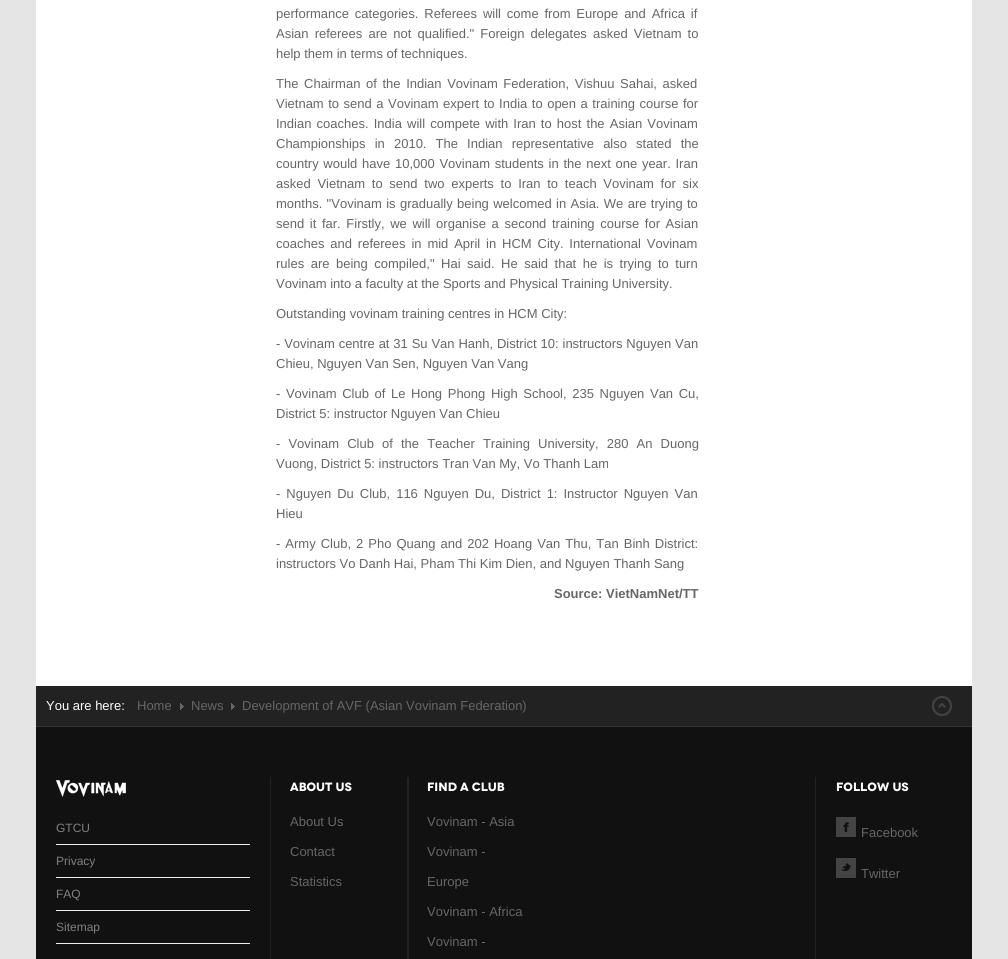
#include <cairo/cairo.h>
#include <math.h>
#include <stddef.h>

typedef struct { double x, y; const char *s; } line_t;
typedef struct { double x, y, w, h; unsigned color; } box_t;
static cairo_t *cr;

static void rgb(unsigned color)
{
	cairo_set_source_rgb(cr, (color >> 16) / 255.0, (color >> 8 & 255) / 255.0, (color & 255) / 255.0);
}

static void tracked(double x, double y, const char *s, double letter, double word)
{
	cairo_move_to(cr, x, y);
	while (*s) {
		char ch[5] = {0};
		int n = 0;
		do ch[n++] = *s++; while ((*s & 0xC0) == 0x80);
		cairo_show_text(cr, ch);
		cairo_rel_move_to(cr, letter + word * (*ch == ' '), 0);
	}
}

static void image(const char *path, double x, double y, double w, double h)
{
	cairo_surface_t *image = cairo_image_surface_create_from_png(path);
	cairo_save(cr);
	cairo_set_source_surface(cr, image, x, y);
	cairo_rectangle(cr, x, y, w, h);
	cairo_fill(cr);
	cairo_restore(cr);
	cairo_surface_destroy(image);
}

int main(void) {
	cairo_surface_t *surface = cairo_image_surface_create(CAIRO_FORMAT_RGB24, 1008, 959);
	cr = cairo_create(surface);
	cairo_font_options_t *options = cairo_font_options_create();
	cairo_font_options_set_hint_metrics(options, CAIRO_HINT_METRICS_OFF);
	cairo_font_options_set_hint_style(options, CAIRO_HINT_STYLE_NONE);
	cairo_set_font_options(cr, options);
	cairo_set_miter_limit(cr, 4);
	rgb(0xe5e5e5);
	cairo_paint(cr);
	rgb(0xffffff);
	cairo_rectangle(cr, 36, 0, 936, 686);
	cairo_fill(cr);
	rgb(0x222222);
	cairo_rectangle(cr, 36, 686, 936, 40);
	cairo_fill(cr);
	image("img/1.png", 180, 703, 4, 7);
	image("img/1.png", 231, 703, 4, 7);
	image("img/2.png", 932, 696, 20, 20);
	rgb(0x111111);
	cairo_rectangle(cr, 36, 727, 936, 232);
	cairo_fill(cr);
	rgb(0x333333);
	cairo_rectangle(cr, 36, 726, 936, 1);
	cairo_fill(cr);
	image("img/3.png", 56, 780, 70, 17);
	{
		static const box_t items[] = {
			{56, 844, 194, 1, 0xeeeeee},
			{56, 877, 194, 1, 0xeeeeee},
			{56, 910, 194, 1, 0xeeeeee},
			{56, 943, 194, 1, 0xeeeeee},
			{815, 777, 1, 182, 0x222222},
			{270, 777, 1, 182, 0x222222},
			{407, 777, 2, 182, 0x222222},
			{836, 817, 20, 20, 0x444444},
		};
		for (size_t i = 0; i < sizeof items / sizeof *items; i++) {
			rgb(items[i].color);
			cairo_rectangle(cr, items[i].x, items[i].y, items[i].w, items[i].h);
			cairo_fill(cr);
		}
	}
	image("img/4.png", 843, 822, 6, 10);
	cairo_rectangle(cr, 836, 858, 20, 20);
	cairo_fill(cr);
	image("img/5.png", 841, 863, 10, 8);
	cairo_select_font_face(cr, "Liberation Sans", CAIRO_FONT_SLANT_NORMAL, CAIRO_FONT_WEIGHT_NORMAL);
	cairo_set_font_size(cr, 13);
	rgb(0x666666);
	tracked(276, 18, "performance categories. Referees will come from Europe and Africa if", 0, 2.25);
	tracked(276, 38, "Asian referees are not qualified.\" Foreign delegates asked Vietnam to", 0, 2.5);
	cairo_move_to(cr, 276, 58);
	cairo_show_text(cr, "help them in terms of techniques.");
	tracked(276, 88, "The Chairman of the Indian Vovinam Federation, Vishuu Sahai, asked", 0, 2);
	tracked(276, 108, "Vietnam to send a Vovinam expert to India to open a training course for", 0, 0.9);
	tracked(276, 128, "Indian coaches. India will compete with Iran to host the Asian Vovinam", 0, 1.5);
	tracked(276, 148, "Championships in 2010. The Indian representative also stated the", 0, 5.5);
	tracked(276, 168, "country would have 10,000 Vovinam students in the next one year. Iran", 0, 1.1);
	tracked(276, 188, "asked Vietnam to send two experts to Iran to teach Vovinam for six", 0, 3.1);
	tracked(276, 208, "months. \"Vovinam is gradually being welcomed in Asia. We are trying to", 0, 0.75);
	tracked(276, 228, "send it far. Firstly, we will organise a second training course for Asian", 0, 2);
	tracked(276, 248, "coaches and referees in mid April in HCM City. International Vovinam", 0, 2.25);
	tracked(276, 268, "rules are being compiled,\" Hai said. He said that he is trying to turn", 0, 2.9);
	cairo_move_to(cr, 276, 288);
	cairo_show_text(cr, "Vovinam into a faculty at the Sports and Physical Training University.");
	cairo_move_to(cr, 276, 318);
	cairo_show_text(cr, "Outstanding vovinam training centres in HCM City:");
	tracked(276, 348, "- Vovinam centre at 31 Su Van Hanh, District 10: instructors Nguyen Van", 0, 0.25);
	cairo_move_to(cr, 276, 368);
	cairo_show_text(cr, "Chieu, Nguyen Van Sen, Nguyen Van Vang");
	tracked(276, 398, "- Vovinam Club of Le Hong Phong High School, 235 Nguyen Van Cu,", 0, 2);
	cairo_move_to(cr, 276, 418);
	cairo_show_text(cr, "District 5: instructor Nguyen Van Chieu");
	tracked(276, 448, "- Vovinam Club of the Teacher Training University, 280 An Duong", 0, 4.5);
	cairo_move_to(cr, 276, 468);
	cairo_show_text(cr, "Vuong, District 5: instructors Tran Van My, Vo Thanh Lam");
	tracked(276, 498, "- Nguyen Du Club, 116 Nguyen Du, District 1: Instructor Nguyen Van", 0, 2.4);
	cairo_move_to(cr, 276, 518);
	cairo_show_text(cr, "Hieu");
	tracked(276, 548, "- Army Club, 2 Pho Quang and 202 Hoang Van Thu, Tan Binh District:", 0, 1.4);
	cairo_move_to(cr, 276, 568);
	cairo_show_text(cr, "instructors Vo Danh Hai, Pham Thi Kim Dien, and Nguyen Thanh Sang");
	cairo_select_font_face(cr, "Liberation Sans", CAIRO_FONT_SLANT_NORMAL, CAIRO_FONT_WEIGHT_BOLD);
	cairo_move_to(cr, 554, 598);
	cairo_show_text(cr, "Source: VietNamNet/TT");
	cairo_select_font_face(cr, "Liberation Sans", CAIRO_FONT_SLANT_NORMAL, CAIRO_FONT_WEIGHT_NORMAL);
	rgb(0xffffff);
	cairo_move_to(cr, 46, 710);
	cairo_show_text(cr, "You are here:");
	rgb(0x666666);
	{
		static const line_t items[] = {
			{137, 710, "Home"},
			{191, 710, "News"},
			{242, 710, "Development of AVF (Asian Vovinam Federation)"},
		};
		for (size_t i = 0; i < sizeof items / sizeof *items; i++) {
			cairo_move_to(cr, items[i].x, items[i].y);
			cairo_show_text(cr, items[i].s);
		}
	}
	cairo_set_font_size(cr, 12);
	rgb(0x808080);
	{
		static const line_t items[] = {
			{56, 832, "GTCU"},
			{56, 865, "Privacy"},
			{56, 898, "FAQ"},
			{56, 931, "Sitemap"},
		};
		for (size_t i = 0; i < sizeof items / sizeof *items; i++) {
			cairo_move_to(cr, items[i].x, items[i].y);
			cairo_show_text(cr, items[i].s);
		}
	}
	cairo_select_font_face(cr, "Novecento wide", CAIRO_FONT_SLANT_NORMAL, CAIRO_FONT_WEIGHT_BOLD);
	rgb(0xffffff);
	cairo_move_to(cr, 290, 791);
	cairo_show_text(cr, "ABOUT US");
	cairo_select_font_face(cr, "Liberation Sans", CAIRO_FONT_SLANT_NORMAL, CAIRO_FONT_WEIGHT_NORMAL);
	cairo_set_font_size(cr, 13);
	rgb(0x666666);
	{
		static const line_t items[] = {
			{290, 826, "About Us"},
			{290, 856, "Contact"},
			{290, 886, "Statistics"},
		};
		for (size_t i = 0; i < sizeof items / sizeof *items; i++) {
			cairo_move_to(cr, items[i].x, items[i].y);
			cairo_show_text(cr, items[i].s);
		}
	}
	cairo_select_font_face(cr, "Novecento wide", CAIRO_FONT_SLANT_NORMAL, CAIRO_FONT_WEIGHT_BOLD);
	cairo_set_font_size(cr, 12);
	rgb(0xffffff);
	cairo_move_to(cr, 427, 791);
	cairo_show_text(cr, "FIND A CLUB");
	cairo_select_font_face(cr, "Liberation Sans", CAIRO_FONT_SLANT_NORMAL, CAIRO_FONT_WEIGHT_NORMAL);
	cairo_set_font_size(cr, 13);
	rgb(0x666666);
	{
		static const line_t items[] = {
			{427, 826, "Vovinam - Asia"},
			{427, 856, "Vovinam -"},
			{427, 886, "Europe"},
			{427, 916, "Vovinam - Africa"},
			{427, 946, "Vovinam -"},
		};
		for (size_t i = 0; i < sizeof items / sizeof *items; i++) {
			cairo_move_to(cr, items[i].x, items[i].y);
			cairo_show_text(cr, items[i].s);
		}
	}
	cairo_select_font_face(cr, "Novecento wide", CAIRO_FONT_SLANT_NORMAL, CAIRO_FONT_WEIGHT_BOLD);
	cairo_set_font_size(cr, 12);
	rgb(0xffffff);
	cairo_move_to(cr, 836, 791);
	cairo_show_text(cr, "FOLLOW US");
	cairo_select_font_face(cr, "Liberation Sans", CAIRO_FONT_SLANT_NORMAL, CAIRO_FONT_WEIGHT_NORMAL);
	cairo_set_font_size(cr, 13);
	rgb(0x666666);
	cairo_move_to(cr, 861, 837);
	cairo_show_text(cr, "Facebook");
	cairo_move_to(cr, 861, 878);
	cairo_show_text(cr, "Twitter");
	cairo_surface_write_to_png(surface, "page.png");
	cairo_font_options_destroy(options);
	cairo_destroy(cr);
	cairo_surface_destroy(surface);
	return 0;
}
